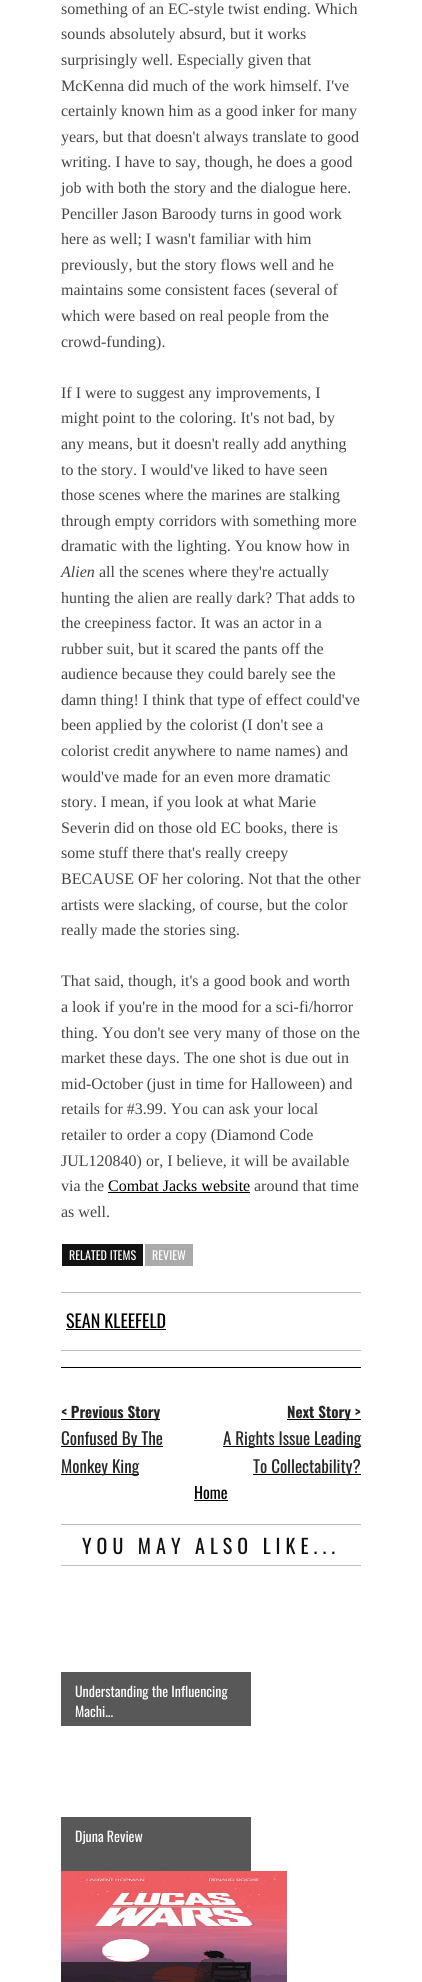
#include <cairo/cairo.h>
#include <math.h>
#include <stddef.h>

typedef struct { double x, y; const char *s; } line_t;
typedef struct { double x, y, w, h; unsigned color; } box_t;
static cairo_t *cr;

static void rgb(unsigned color)
{
	cairo_set_source_rgb(cr, (color >> 16) / 255.0, (color >> 8 & 255) / 255.0, (color & 255) / 255.0);
}

static void tracked(double x, double y, const char *s, double letter, double word)
{
	cairo_move_to(cr, x, y);
	while (*s) {
		char ch[5] = {0};
		int n = 0;
		do ch[n++] = *s++; while ((*s & 0xC0) == 0x80);
		cairo_show_text(cr, ch);
		cairo_rel_move_to(cr, letter + word * (*ch == ' '), 0);
	}
}

static void image(const char *path, double x, double y, double w, double h)
{
	cairo_surface_t *image = cairo_image_surface_create_from_png(path);
	cairo_save(cr);
	cairo_set_source_surface(cr, image, x, y);
	cairo_rectangle(cr, x, y, w, h);
	cairo_fill(cr);
	cairo_restore(cr);
	cairo_surface_destroy(image);
}

int main(void) {
	cairo_surface_t *surface = cairo_image_surface_create(CAIRO_FORMAT_RGB24, 422, 1982);
	cr = cairo_create(surface);
	cairo_font_options_t *options = cairo_font_options_create();
	cairo_font_options_set_hint_metrics(options, CAIRO_HINT_METRICS_OFF);
	cairo_font_options_set_hint_style(options, CAIRO_HINT_STYLE_NONE);
	cairo_set_font_options(cr, options);
	cairo_set_miter_limit(cr, 4);
	rgb(0xffffff);
	cairo_paint(cr);
	{
		static const box_t items[] = {
			{108, 1192, 142, 1, 0x000000},
			{62, 1244, 81, 22, 0x121212},
			{145, 1244, 48, 22, 0xaaaaaa},
			{61, 1292, 300, 1, 0xbcbcbc},
			{61, 1350, 300, 1, 0xbcbcbc},
			{66, 1329, 100, 1, 0x000000},
			{61, 1367, 300, 1, 0x000000},
			{61, 1419, 99, 1, 0x000000},
			{61, 1446, 102, 1, 0x000000},
			{61, 1474, 78, 1, 0x000000},
			{287, 1419, 74, 1, 0x000000},
			{223, 1446, 138, 1, 0x000000},
			{253, 1474, 108, 1, 0x000000},
			{194, 1500, 34, 1, 0x000000},
			{61, 1524, 300, 1, 0xbcbcbc},
			{61, 1565, 300, 1, 0xbcbcbc},
			{61, 1672, 190, 54, 0x585858},
			{61, 1817, 190, 54, 0x585858},
		};
		for (size_t i = 0; i < sizeof items / sizeof *items; i++) {
			rgb(items[i].color);
			cairo_rectangle(cr, items[i].x, items[i].y, items[i].w, items[i].h);
			cairo_fill(cr);
		}
	}
	image("img/1.png", 61, 1871, 226, 111);
	cairo_set_source_rgba(cr, 0.067, 0.067, 0.067, 0.7);
	cairo_rectangle(cr, 61, 1962, 190, 20);
	cairo_fill(cr);
	cairo_select_font_face(cr, "Liberation Serif", CAIRO_FONT_SLANT_NORMAL, CAIRO_FONT_WEIGHT_NORMAL);
	cairo_set_font_size(cr, 16);
	rgb(0x444444);
	{
		static const line_t items[] = {
			{61, 14, "something of an EC-style twist ending. Which"},
			{61, 39, "sounds absolutely absurd, but it works"},
			{61, 65, "surprisingly well. Especially given that"},
			{61, 91, "McKenna did much of the work himself. I've"},
			{61, 116, "certainly known him as a good inker for many"},
			{61, 142, "years, but that doesn't always translate to good"},
			{61, 167, "writing. I have to say, though, he does a good"},
			{61, 193, "job with both the story and the dialogue here."},
			{61, 219, "Penciller Jason Baroody turns in good work"},
			{61, 244, "here as well; I wasn't familiar with him"},
			{61, 270, "previously, but the story flows well and he"},
			{61, 295, "maintains some consistent faces (several of"},
			{61, 321, "which were based on real people from the"},
			{61, 347, "crowd-funding)."},
			{61, 398, "If I were to suggest any improvements, I"},
			{61, 423, "might point to the coloring. It's not bad, by"},
			{61, 449, "any means, but it doesn't really add anything"},
			{61, 475, "to the story. I would've liked to have seen"},
			{61, 500, "those scenes where the marines are stalking"},
			{61, 526, "through empty corridors with something more"},
			{61, 551, "dramatic with the lighting. You know how in"},
		};
		for (size_t i = 0; i < sizeof items / sizeof *items; i++) {
			cairo_move_to(cr, items[i].x, items[i].y);
			cairo_show_text(cr, items[i].s);
		}
	}
	cairo_select_font_face(cr, "Liberation Serif", CAIRO_FONT_SLANT_ITALIC, CAIRO_FONT_WEIGHT_NORMAL);
	cairo_move_to(cr, 61, 577);
	cairo_show_text(cr, "Alien");
	cairo_select_font_face(cr, "Liberation Serif", CAIRO_FONT_SLANT_NORMAL, CAIRO_FONT_WEIGHT_NORMAL);
	{
		static const line_t items[] = {
			{99, 577, "all the scenes where they're actually"},
			{61, 603, "hunting the alien are really dark? That adds to"},
			{61, 628, "the creepiness factor. It was an actor in a"},
			{61, 654, "rubber suit, but it scared the pants off the"},
			{61, 679, "audience because they could barely see the"},
			{61, 705, "damn thing! I think that type of effect could've"},
			{61, 730, "been applied by the colorist (I don't see a"},
			{61, 756, "colorist credit anywhere to name names) and"},
			{61, 782, "would've made for an even more dramatic"},
			{61, 807, "story. I mean, if you look at what Marie"},
			{61, 833, "Severin did on those old EC books, there is"},
			{61, 858, "some stuff there that's really creepy"},
			{61, 884, "BECAUSE OF her coloring. Not that the other"},
			{61, 910, "artists were slacking, of course, but the color"},
			{61, 935, "really made the stories sing."},
			{61, 986, "That said, though, it's a good book and worth"},
			{61, 1012, "a look if you're in the mood for a sci-fi/horror"},
			{61, 1038, "thing. You don't see very many of those on the"},
			{61, 1063, "market these days. The one shot is due out in"},
			{61, 1089, "mid-October (just in time for Halloween) and"},
			{61, 1114, "retails for #3.99. You can ask your local"},
			{61, 1140, "retailer to order a copy (Diamond Code"},
			{61, 1166, "JUL120840) or, I believe, it will be available"},
			{61, 1191, "via the"},
		};
		for (size_t i = 0; i < sizeof items / sizeof *items; i++) {
			cairo_move_to(cr, items[i].x, items[i].y);
			cairo_show_text(cr, items[i].s);
		}
	}
	rgb(0x000000);
	cairo_move_to(cr, 108, 1191);
	cairo_show_text(cr, "Combat Jacks website");
	rgb(0x444444);
	cairo_move_to(cr, 254, 1191);
	cairo_show_text(cr, "around that time");
	cairo_move_to(cr, 61, 1217);
	cairo_show_text(cr, "as well.");
	cairo_select_font_face(cr, "Oswald", CAIRO_FONT_SLANT_NORMAL, CAIRO_FONT_WEIGHT_NORMAL);
	cairo_set_font_size(cr, 12);
	rgb(0xffffff);
	cairo_move_to(cr, 69, 1260);
	cairo_show_text(cr, "RELATED ITEMS");
	cairo_move_to(cr, 152, 1260);
	cairo_show_text(cr, "REVIEW");
	cairo_set_font_size(cr, 18);
	rgb(0x000000);
	cairo_move_to(cr, 66, 1328);
	cairo_show_text(cr, "SEAN KLEEFELD");
	cairo_select_font_face(cr, "Oswald", CAIRO_FONT_SLANT_NORMAL, CAIRO_FONT_WEIGHT_BOLD);
	cairo_set_font_size(cr, 15);
	rgb(0x272727);
	cairo_move_to(cr, 61, 1418);
	cairo_show_text(cr, "< Previous Story");
	cairo_select_font_face(cr, "Oswald", CAIRO_FONT_SLANT_NORMAL, CAIRO_FONT_WEIGHT_NORMAL);
	cairo_set_font_size(cr, 17);
	cairo_move_to(cr, 61, 1445);
	cairo_show_text(cr, "Confused By The");
	cairo_move_to(cr, 61, 1473);
	cairo_show_text(cr, "Monkey King");
	cairo_select_font_face(cr, "Oswald", CAIRO_FONT_SLANT_NORMAL, CAIRO_FONT_WEIGHT_BOLD);
	cairo_set_font_size(cr, 15);
	cairo_move_to(cr, 287, 1418);
	cairo_show_text(cr, "Next Story >");
	cairo_select_font_face(cr, "Oswald", CAIRO_FONT_SLANT_NORMAL, CAIRO_FONT_WEIGHT_NORMAL);
	cairo_set_font_size(cr, 17);
	cairo_move_to(cr, 223, 1445);
	cairo_show_text(cr, "A Rights Issue Leading");
	cairo_move_to(cr, 253, 1473);
	cairo_show_text(cr, "To Collectability?");
	cairo_set_font_size(cr, 16);
	rgb(0x000000);
	cairo_move_to(cr, 194, 1499);
	cairo_show_text(cr, "Home");
	cairo_set_font_size(cr, 20);
	rgb(0x111111);
	tracked(82, 1554, "YOU MAY ALSO LIKE...", 5, 0);
	cairo_set_font_size(cr, 14);
	rgb(0xffffff);
	{
		static const line_t items[] = {
			{75, 1697, "Understanding the Influencing"},
			{75, 1717, "Machi..."},
			{75, 1842, "Djuna Review"},
		};
		for (size_t i = 0; i < sizeof items / sizeof *items; i++) {
			cairo_move_to(cr, items[i].x, items[i].y);
			cairo_show_text(cr, items[i].s);
		}
	}
	cairo_surface_write_to_png(surface, "page.png");
	cairo_font_options_destroy(options);
	cairo_destroy(cr);
	cairo_surface_destroy(surface);
	return 0;
}
